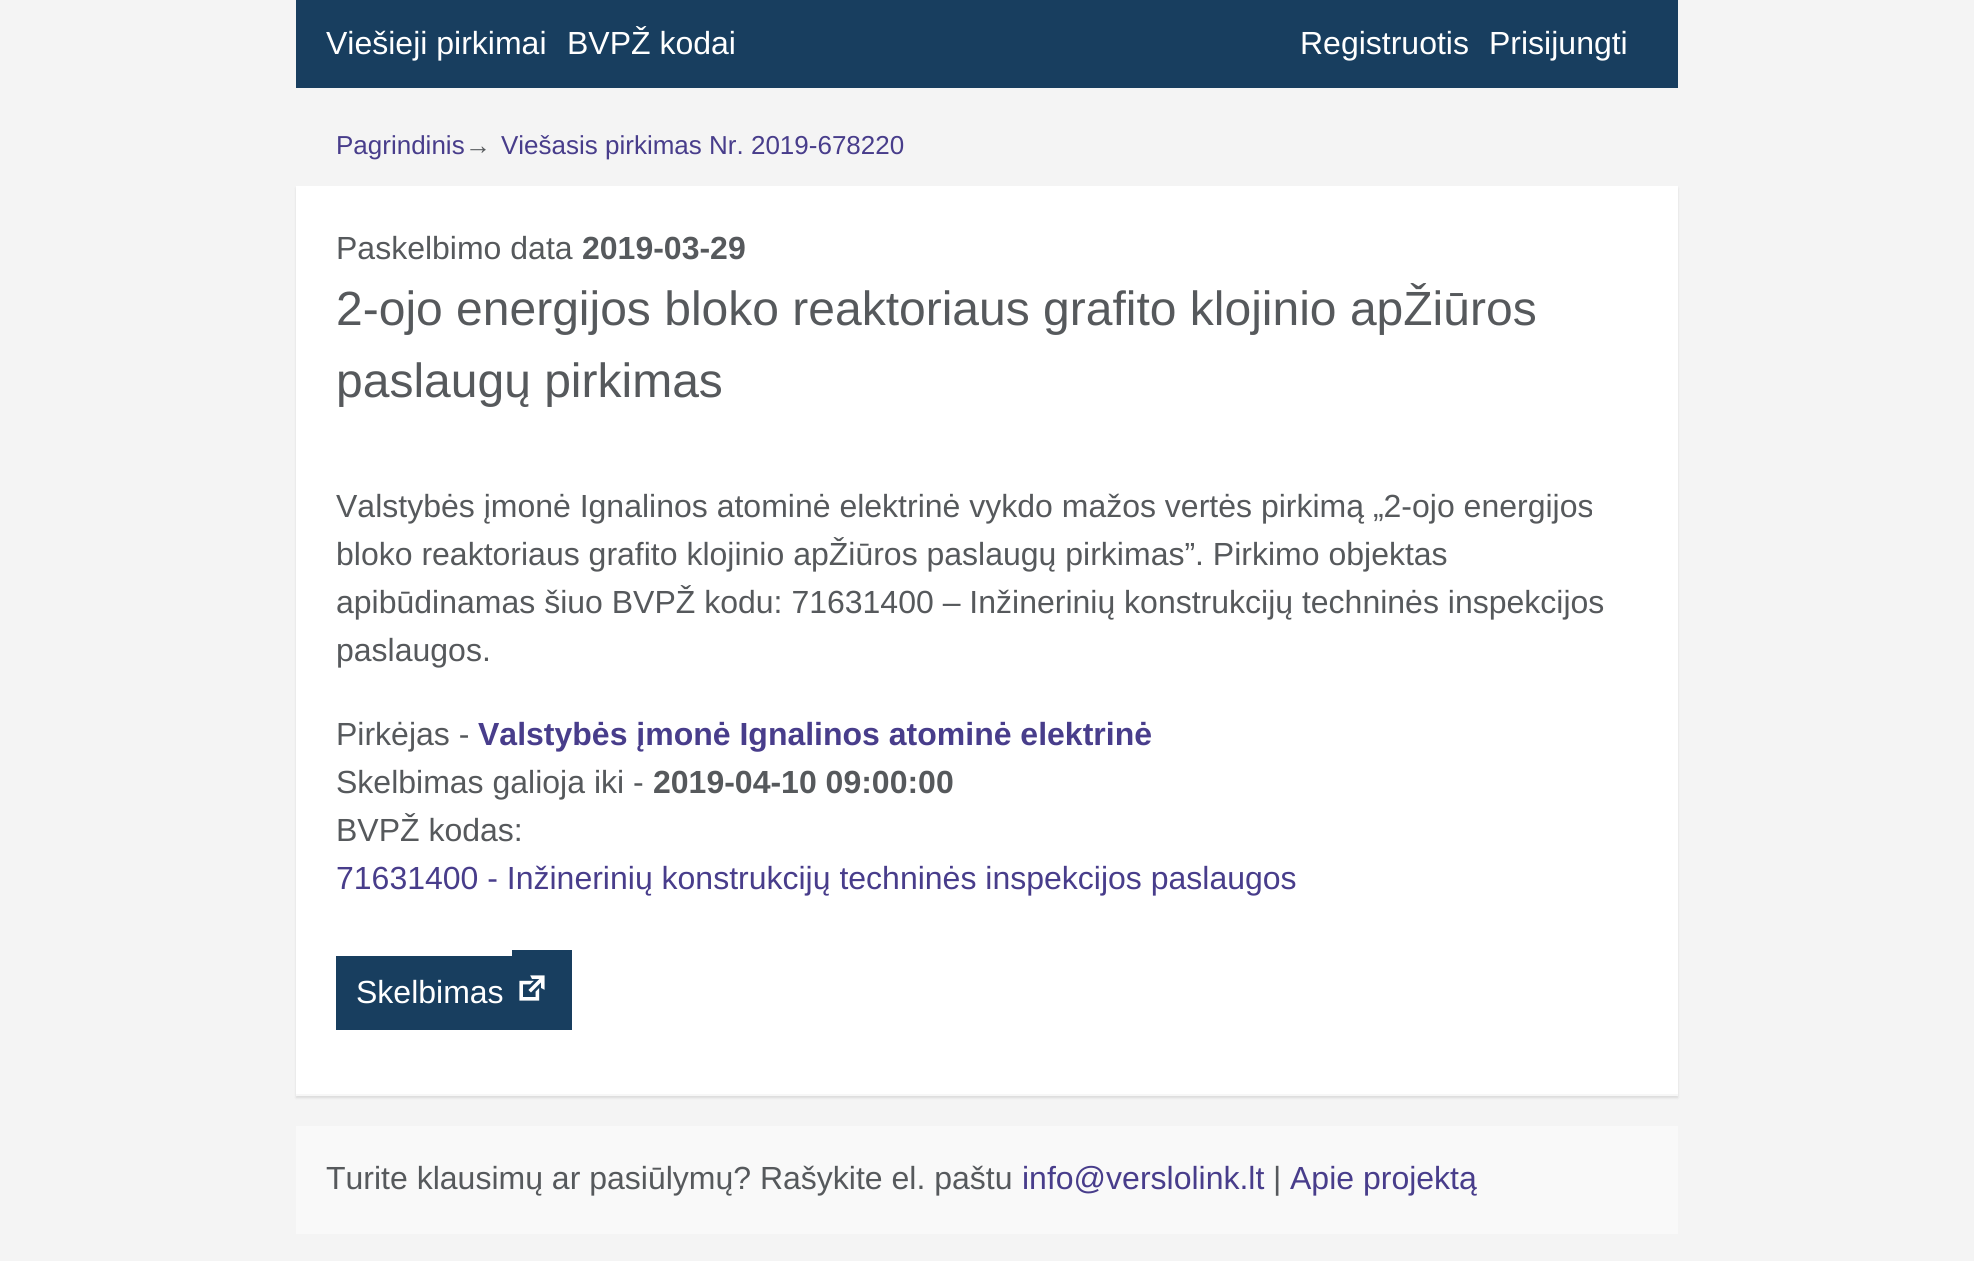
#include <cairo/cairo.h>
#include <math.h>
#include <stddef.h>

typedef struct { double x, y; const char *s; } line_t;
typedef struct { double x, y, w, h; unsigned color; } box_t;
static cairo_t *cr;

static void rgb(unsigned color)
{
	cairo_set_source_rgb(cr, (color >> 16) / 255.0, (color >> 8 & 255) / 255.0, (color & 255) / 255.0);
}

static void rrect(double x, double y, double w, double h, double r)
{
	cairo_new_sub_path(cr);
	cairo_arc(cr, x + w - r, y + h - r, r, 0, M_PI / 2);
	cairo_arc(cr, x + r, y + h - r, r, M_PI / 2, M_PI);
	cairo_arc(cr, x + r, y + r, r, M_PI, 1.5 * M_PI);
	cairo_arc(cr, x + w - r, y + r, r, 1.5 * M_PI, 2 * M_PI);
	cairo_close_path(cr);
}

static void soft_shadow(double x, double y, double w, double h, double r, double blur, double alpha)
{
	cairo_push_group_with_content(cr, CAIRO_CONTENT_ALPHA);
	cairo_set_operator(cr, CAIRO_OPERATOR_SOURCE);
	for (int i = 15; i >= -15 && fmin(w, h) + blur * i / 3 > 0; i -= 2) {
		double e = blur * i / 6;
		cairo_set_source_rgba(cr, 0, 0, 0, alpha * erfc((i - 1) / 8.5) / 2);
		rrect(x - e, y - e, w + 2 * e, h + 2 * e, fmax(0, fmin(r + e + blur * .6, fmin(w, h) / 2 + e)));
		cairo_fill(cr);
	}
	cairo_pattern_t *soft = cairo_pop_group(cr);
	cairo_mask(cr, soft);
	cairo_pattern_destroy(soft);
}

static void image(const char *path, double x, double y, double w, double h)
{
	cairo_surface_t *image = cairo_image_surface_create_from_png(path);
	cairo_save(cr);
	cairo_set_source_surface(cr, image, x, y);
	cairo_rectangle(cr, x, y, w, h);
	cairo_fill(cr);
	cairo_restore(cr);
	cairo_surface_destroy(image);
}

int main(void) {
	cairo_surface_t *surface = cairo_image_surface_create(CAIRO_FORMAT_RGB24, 1974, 1261);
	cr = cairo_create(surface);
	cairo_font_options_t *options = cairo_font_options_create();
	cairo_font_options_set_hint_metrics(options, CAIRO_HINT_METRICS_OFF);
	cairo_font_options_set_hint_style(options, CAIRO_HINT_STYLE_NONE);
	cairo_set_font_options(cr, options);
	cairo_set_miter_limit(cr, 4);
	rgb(0xf4f4f4);
	cairo_paint(cr);
	rgb(0x183e5f);
	cairo_rectangle(cr, 296, 0, 1382, 88);
	cairo_fill(cr);
	rgb(0x000000);
	soft_shadow(296, 188, 1382, 910, 0, 1, 0.1);
	{
		static const box_t items[] = {
			{296, 186, 1382, 908, 0xffffff},
			{296, 1094, 1382, 2, 0xf7f7f7},
			{336, 956, 176, 74, 0x183e5f},
			{512, 950, 60, 80, 0x183e5f},
		};
		for (size_t i = 0; i < sizeof items / sizeof *items; i++) {
			rgb(items[i].color);
			cairo_rectangle(cr, items[i].x, items[i].y, items[i].w, items[i].h);
			cairo_fill(cr);
		}
	}
	image("img/1.png", 519, 975, 26, 26);
	rgb(0xf9f9f9);
	cairo_rectangle(cr, 296, 1126, 1382, 108);
	cairo_fill(cr);
	cairo_select_font_face(cr, "Liberation Sans", CAIRO_FONT_SLANT_NORMAL, CAIRO_FONT_WEIGHT_NORMAL);
	cairo_set_font_size(cr, 32);
	rgb(0xffffff);
	{
		static const line_t items[] = {
			{326, 54, "Viešieji pirkimai"},
			{567, 54, "BVPŽ kodai"},
			{1300, 54, "Registruotis"},
			{1489, 54, "Prisijungti"},
		};
		for (size_t i = 0; i < sizeof items / sizeof *items; i++) {
			cairo_move_to(cr, items[i].x, items[i].y);
			cairo_show_text(cr, items[i].s);
		}
	}
	cairo_set_font_size(cr, 26);
	rgb(0x483d8b);
	cairo_move_to(cr, 336, 154);
	cairo_show_text(cr, "Pagrindinis");
	rgb(0x56595c);
	cairo_move_to(cr, 465, 154);
	cairo_show_text(cr, "→");
	rgb(0x483d8b);
	cairo_move_to(cr, 501, 154);
	cairo_show_text(cr, "Viešasis pirkimas Nr. 2019-678220");
	cairo_set_font_size(cr, 32);
	rgb(0x56595c);
	cairo_move_to(cr, 336, 259);
	cairo_show_text(cr, "Paskelbimo data");
	cairo_select_font_face(cr, "Liberation Sans", CAIRO_FONT_SLANT_NORMAL, CAIRO_FONT_WEIGHT_BOLD);
	cairo_move_to(cr, 582, 259);
	cairo_show_text(cr, "2019-03-29");
	cairo_select_font_face(cr, "Liberation Sans", CAIRO_FONT_SLANT_NORMAL, CAIRO_FONT_WEIGHT_NORMAL);
	cairo_set_font_size(cr, 48);
	cairo_move_to(cr, 336, 325);
	cairo_show_text(cr, "2-ojo energijos bloko reaktoriaus grafito klojinio apŽiūros");
	cairo_move_to(cr, 336, 397);
	cairo_show_text(cr, "paslaugų pirkimas");
	cairo_set_font_size(cr, 32);
	{
		static const line_t items[] = {
			{336, 517, "Valstybės įmonė Ignalinos atominė elektrinė vykdo mažos vertės pirkimą „2-ojo energijos"},
			{336, 565, "bloko reaktoriaus grafito klojinio apŽiūros paslaugų pirkimas”. Pirkimo objektas"},
			{336, 613, "apibūdinamas šiuo BVPŽ kodu: 71631400 – Inžinerinių konstrukcijų techninės inspekcijos"},
			{336, 661, "paslaugos."},
			{336, 745, "Pirkėjas -"},
		};
		for (size_t i = 0; i < sizeof items / sizeof *items; i++) {
			cairo_move_to(cr, items[i].x, items[i].y);
			cairo_show_text(cr, items[i].s);
		}
	}
	cairo_select_font_face(cr, "Liberation Sans", CAIRO_FONT_SLANT_NORMAL, CAIRO_FONT_WEIGHT_BOLD);
	rgb(0x483d8b);
	cairo_move_to(cr, 478, 745);
	cairo_show_text(cr, "Valstybės įmonė Ignalinos atominė elektrinė");
	cairo_select_font_face(cr, "Liberation Sans", CAIRO_FONT_SLANT_NORMAL, CAIRO_FONT_WEIGHT_NORMAL);
	rgb(0x56595c);
	cairo_move_to(cr, 336, 793);
	cairo_show_text(cr, "Skelbimas galioja iki -");
	cairo_select_font_face(cr, "Liberation Sans", CAIRO_FONT_SLANT_NORMAL, CAIRO_FONT_WEIGHT_BOLD);
	cairo_move_to(cr, 653, 793);
	cairo_show_text(cr, "2019-04-10 09:00:00");
	cairo_select_font_face(cr, "Liberation Sans", CAIRO_FONT_SLANT_NORMAL, CAIRO_FONT_WEIGHT_NORMAL);
	cairo_move_to(cr, 336, 841);
	cairo_show_text(cr, "BVPŽ kodas:");
	rgb(0x483d8b);
	cairo_move_to(cr, 336, 889);
	cairo_show_text(cr, "71631400 - Inžinerinių konstrukcijų techninės inspekcijos paslaugos");
	rgb(0xffffff);
	cairo_move_to(cr, 356, 1003);
	cairo_show_text(cr, "Skelbimas");
	rgb(0x56595c);
	cairo_move_to(cr, 326, 1189);
	cairo_show_text(cr, "Turite klausimų ar pasiūlymų? Rašykite el. paštu");
	rgb(0x483d8b);
	cairo_move_to(cr, 1022, 1189);
	cairo_show_text(cr, "info@verslolink.lt");
	rgb(0x56595c);
	cairo_move_to(cr, 1273, 1189);
	cairo_show_text(cr, "|");
	rgb(0x483d8b);
	cairo_move_to(cr, 1290, 1189);
	cairo_show_text(cr, "Apie projektą");
	cairo_surface_write_to_png(surface, "page.png");
	cairo_font_options_destroy(options);
	cairo_destroy(cr);
	cairo_surface_destroy(surface);
	return 0;
}
